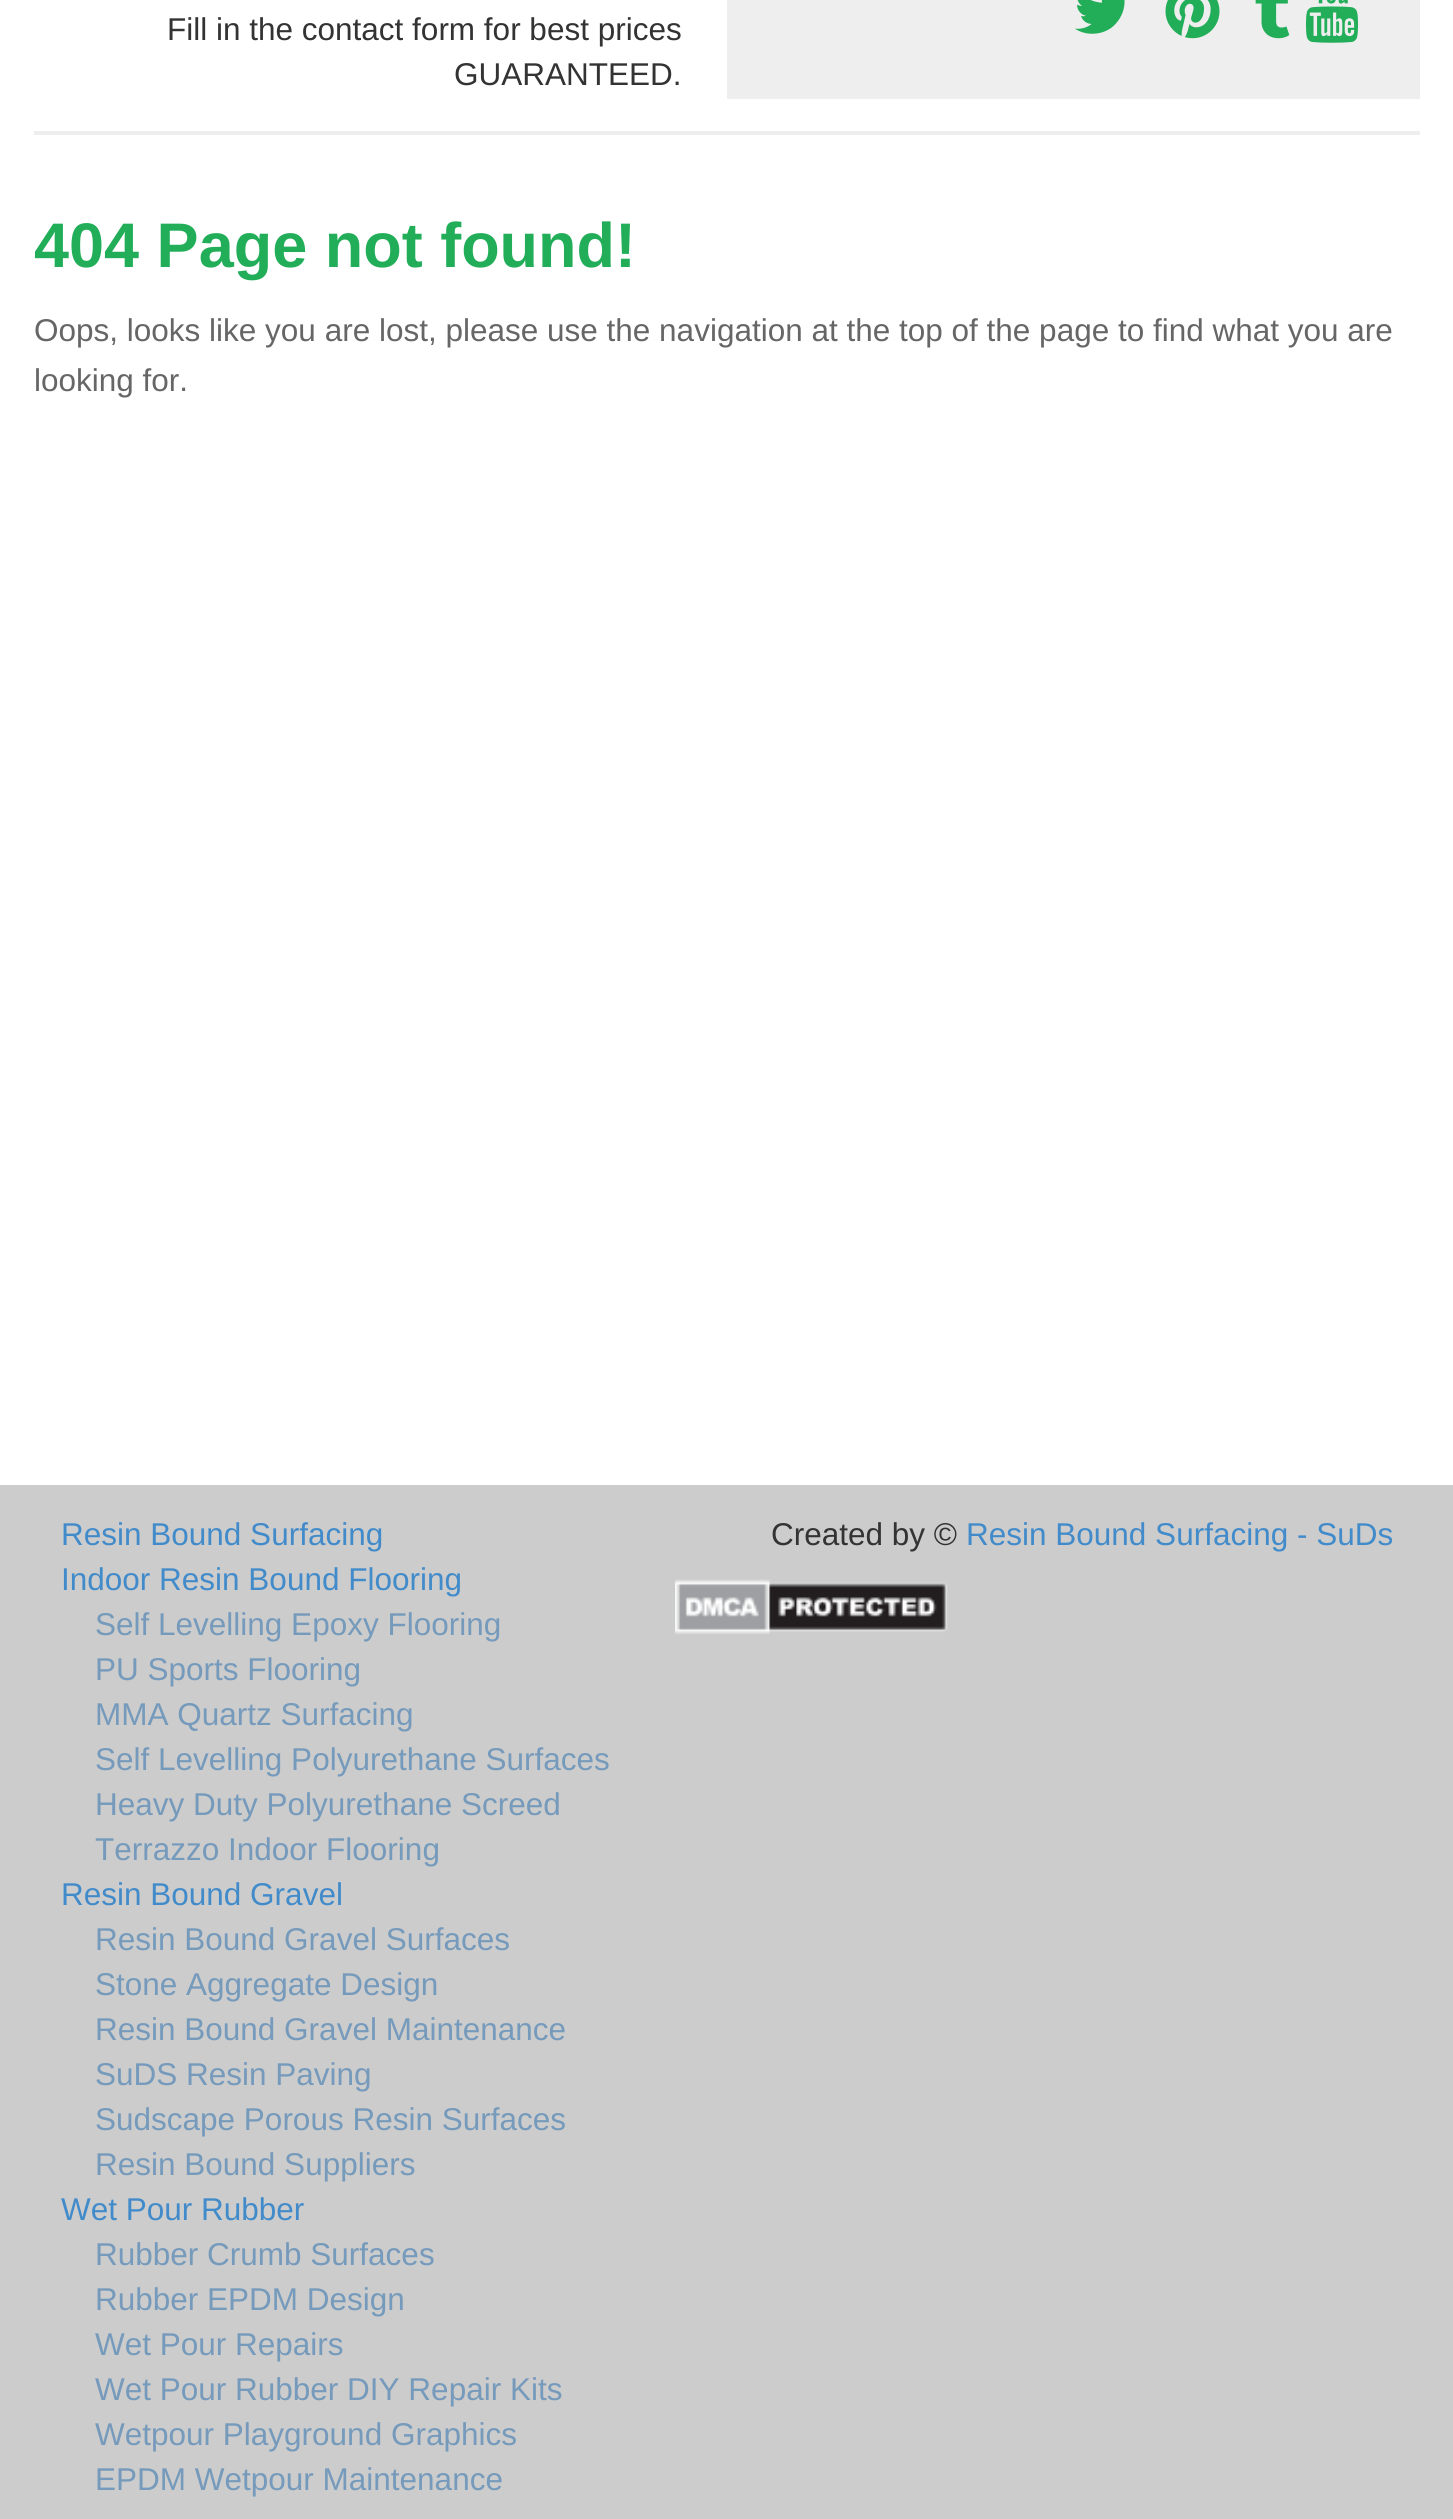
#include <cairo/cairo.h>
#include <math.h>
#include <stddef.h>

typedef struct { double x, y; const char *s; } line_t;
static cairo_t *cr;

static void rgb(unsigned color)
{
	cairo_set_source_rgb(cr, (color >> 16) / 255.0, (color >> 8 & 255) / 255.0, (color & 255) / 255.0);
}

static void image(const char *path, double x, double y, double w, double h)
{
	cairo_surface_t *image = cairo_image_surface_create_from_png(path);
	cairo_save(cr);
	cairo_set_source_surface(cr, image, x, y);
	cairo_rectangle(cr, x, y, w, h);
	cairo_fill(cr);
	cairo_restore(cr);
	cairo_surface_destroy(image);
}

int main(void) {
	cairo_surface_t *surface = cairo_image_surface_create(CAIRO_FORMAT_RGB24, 1453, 2519);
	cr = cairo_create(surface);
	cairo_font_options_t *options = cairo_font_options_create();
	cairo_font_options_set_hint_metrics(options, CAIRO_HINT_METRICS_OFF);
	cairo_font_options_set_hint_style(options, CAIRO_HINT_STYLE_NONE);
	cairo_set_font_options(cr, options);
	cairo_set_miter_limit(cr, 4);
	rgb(0xffffff);
	cairo_paint(cr);
	rgb(0xeeeeee);
	cairo_rectangle(cr, 727, 0, 693, 99);
	cairo_fill(cr);
	image("img/1.png", 1075, 0, 50, 34);
	image("img/2.png", 1165, 0, 55, 39);
	image("img/3.png", 1255, 0, 35, 39);
	image("img/4.png", 1305, 0, 54, 43);
	cairo_rectangle(cr, 34, 131, 1386, 4);
	cairo_fill(cr);
	rgb(0xcccccc);
	cairo_rectangle(cr, 0, 1485, 1453, 1034);
	cairo_fill(cr);
	image("img/5.png", 675, 1579, 273, 55);
	cairo_select_font_face(cr, "Liberation Sans", CAIRO_FONT_SLANT_NORMAL, CAIRO_FONT_WEIGHT_NORMAL);
	cairo_set_font_size(cr, 31.5);
	rgb(0x333333);
	cairo_move_to(cr, 167, 40);
	cairo_show_text(cr, "Fill in the contact form for best prices");
	cairo_move_to(cr, 454, 85);
	cairo_show_text(cr, "GUARANTEED.");
	cairo_select_font_face(cr, "Liberation Sans", CAIRO_FONT_SLANT_NORMAL, CAIRO_FONT_WEIGHT_BOLD);
	cairo_set_font_size(cr, 63);
	rgb(0x22ae59);
	cairo_move_to(cr, 34, 267);
	cairo_show_text(cr, "404 Page not found!");
	cairo_select_font_face(cr, "Liberation Sans", CAIRO_FONT_SLANT_NORMAL, CAIRO_FONT_WEIGHT_NORMAL);
	cairo_set_font_size(cr, 31.5);
	rgb(0x666666);
	cairo_move_to(cr, 34, 341);
	cairo_show_text(cr, "Oops, looks like you are lost, please use the navigation at the top of the page to find what you are");
	cairo_move_to(cr, 34, 391);
	cairo_show_text(cr, "looking for.");
	rgb(0x428bca);
	cairo_move_to(cr, 61, 1545);
	cairo_show_text(cr, "Resin Bound Surfacing");
	cairo_move_to(cr, 61, 1590);
	cairo_show_text(cr, "Indoor Resin Bound Flooring");
	rgb(0x759abb);
	{
		static const line_t items[] = {
			{95, 1635, "Self Levelling Epoxy Flooring"},
			{95, 1680, "PU Sports Flooring"},
			{95, 1725, "MMA Quartz Surfacing"},
			{95, 1770, "Self Levelling Polyurethane Surfaces"},
			{95, 1815, "Heavy Duty Polyurethane Screed"},
			{95, 1860, "Terrazzo Indoor Flooring"},
		};
		for (size_t i = 0; i < sizeof items / sizeof *items; i++) {
			cairo_move_to(cr, items[i].x, items[i].y);
			cairo_show_text(cr, items[i].s);
		}
	}
	rgb(0x428bca);
	cairo_move_to(cr, 61, 1905);
	cairo_show_text(cr, "Resin Bound Gravel");
	rgb(0x759abb);
	{
		static const line_t items[] = {
			{95, 1950, "Resin Bound Gravel Surfaces"},
			{95, 1995, "Stone Aggregate Design"},
			{95, 2040, "Resin Bound Gravel Maintenance"},
			{95, 2085, "SuDS Resin Paving"},
			{95, 2130, "Sudscape Porous Resin Surfaces"},
			{95, 2175, "Resin Bound Suppliers"},
		};
		for (size_t i = 0; i < sizeof items / sizeof *items; i++) {
			cairo_move_to(cr, items[i].x, items[i].y);
			cairo_show_text(cr, items[i].s);
		}
	}
	rgb(0x428bca);
	cairo_move_to(cr, 61, 2220);
	cairo_show_text(cr, "Wet Pour Rubber");
	rgb(0x759abb);
	{
		static const line_t items[] = {
			{95, 2265, "Rubber Crumb Surfaces"},
			{95, 2310, "Rubber EPDM Design"},
			{95, 2355, "Wet Pour Repairs"},
			{95, 2400, "Wet Pour Rubber DIY Repair Kits"},
			{95, 2445, "Wetpour Playground Graphics"},
			{95, 2490, "EPDM Wetpour Maintenance"},
		};
		for (size_t i = 0; i < sizeof items / sizeof *items; i++) {
			cairo_move_to(cr, items[i].x, items[i].y);
			cairo_show_text(cr, items[i].s);
		}
	}
	rgb(0x333333);
	cairo_move_to(cr, 771, 1545);
	cairo_show_text(cr, "Created by ©");
	rgb(0x428bca);
	cairo_move_to(cr, 966, 1545);
	cairo_show_text(cr, "Resin Bound Surfacing - SuDs");
	cairo_surface_write_to_png(surface, "page.png");
	cairo_font_options_destroy(options);
	cairo_destroy(cr);
	cairo_surface_destroy(surface);
	return 0;
}
